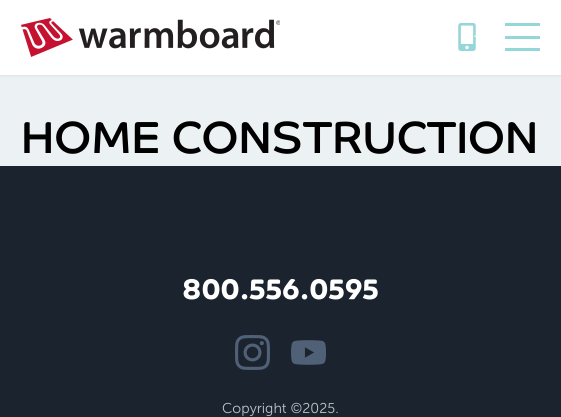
#include <cairo/cairo.h>
#include <math.h>
#include <stddef.h>

typedef struct { double x, y, w, h; unsigned color; } box_t;
static cairo_t *cr;

static void rgb(unsigned color)
{
	cairo_set_source_rgb(cr, (color >> 16) / 255.0, (color >> 8 & 255) / 255.0, (color & 255) / 255.0);
}

static void rrect(double x, double y, double w, double h, double r)
{
	cairo_new_sub_path(cr);
	cairo_arc(cr, x + w - r, y + h - r, r, 0, M_PI / 2);
	cairo_arc(cr, x + r, y + h - r, r, M_PI / 2, M_PI);
	cairo_arc(cr, x + r, y + r, r, M_PI, 1.5 * M_PI);
	cairo_arc(cr, x + w - r, y + r, r, 1.5 * M_PI, 2 * M_PI);
	cairo_close_path(cr);
}

static void soft_shadow(double x, double y, double w, double h, double r, double blur, double alpha)
{
	cairo_push_group_with_content(cr, CAIRO_CONTENT_ALPHA);
	cairo_set_operator(cr, CAIRO_OPERATOR_SOURCE);
	for (int i = 15; i >= -15 && fmin(w, h) + blur * i / 3 > 0; i -= 2) {
		double e = blur * i / 6;
		cairo_set_source_rgba(cr, 0, 0, 0, alpha * erfc((i - 1) / 8.5) / 2);
		rrect(x - e, y - e, w + 2 * e, h + 2 * e, fmax(0, fmin(r + e + blur * .6, fmin(w, h) / 2 + e)));
		cairo_fill(cr);
	}
	cairo_pattern_t *soft = cairo_pop_group(cr);
	cairo_mask(cr, soft);
	cairo_pattern_destroy(soft);
}

static void image(const char *path, double x, double y, double w, double h)
{
	cairo_surface_t *image = cairo_image_surface_create_from_png(path);
	cairo_save(cr);
	cairo_set_source_surface(cr, image, x, y);
	cairo_rectangle(cr, x, y, w, h);
	cairo_fill(cr);
	cairo_restore(cr);
	cairo_surface_destroy(image);
}

int main(void) {
	cairo_surface_t *surface = cairo_image_surface_create(CAIRO_FORMAT_RGB24, 561, 417);
	cr = cairo_create(surface);
	cairo_font_options_t *options = cairo_font_options_create();
	cairo_font_options_set_hint_metrics(options, CAIRO_HINT_METRICS_OFF);
	cairo_font_options_set_hint_style(options, CAIRO_HINT_STYLE_NONE);
	cairo_set_font_options(cr, options);
	cairo_set_miter_limit(cr, 4);
	rgb(0xecf1f4);
	cairo_paint(cr);
	rgb(0x000000);
	soft_shadow(0, 1, 561, 75, 0, 1.5, 0.07);
	rgb(0xffffff);
	cairo_rectangle(cr, 0, 0, 561, 75);
	cairo_fill(cr);
	image("img/1.png", 21, 18, 259, 39);
	image("img/2.png", 458, 23, 18, 28);
	{
		static const box_t items[] = {
			{505, 23, 35, 3, 0x95d6d8},
			{505, 36, 35, 3, 0x95d6d8},
			{505, 48, 35, 3, 0x95d6d8},
			{0, 166, 561, 251, 0x1b232f},
		};
		for (size_t i = 0; i < sizeof items / sizeof *items; i++) {
			rgb(items[i].color);
			cairo_rectangle(cr, items[i].x, items[i].y, items[i].w, items[i].h);
			cairo_fill(cr);
		}
	}
	image("img/3.png", 235, 335, 35, 35);
	image("img/4.png", 291, 340, 35, 25);
	cairo_select_font_face(cr, "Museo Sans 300 Light", CAIRO_FONT_SLANT_NORMAL, CAIRO_FONT_WEIGHT_NORMAL);
	cairo_set_font_size(cr, 17);
	rgb(0xf4fbfb);
	cairo_move_to(cr, 473, 37);
	cairo_show_text(cr, ".");
	cairo_select_font_face(cr, "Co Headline", CAIRO_FONT_SLANT_NORMAL, CAIRO_FONT_WEIGHT_NORMAL);
	cairo_set_font_size(cr, 45.1);
	rgb(0x000000);
	cairo_move_to(cr, 21, 153);
	cairo_show_text(cr, "HOME CONSTRUCTION");
	cairo_select_font_face(cr, "Co Headline", CAIRO_FONT_SLANT_NORMAL, CAIRO_FONT_WEIGHT_BOLD);
	cairo_set_font_size(cr, 28.5);
	rgb(0xffffff);
	cairo_move_to(cr, 182, 299);
	cairo_show_text(cr, "800.556.0595");
	cairo_select_font_face(cr, "Museo Sans 300 Light", CAIRO_FONT_SLANT_NORMAL, CAIRO_FONT_WEIGHT_NORMAL);
	cairo_set_font_size(cr, 14.25);
	rgb(0xbcc5c9);
	cairo_move_to(cr, 222, 413);
	cairo_show_text(cr, "Copyright ©2025.");
	cairo_surface_write_to_png(surface, "page.png");
	cairo_font_options_destroy(options);
	cairo_destroy(cr);
	cairo_surface_destroy(surface);
	return 0;
}
